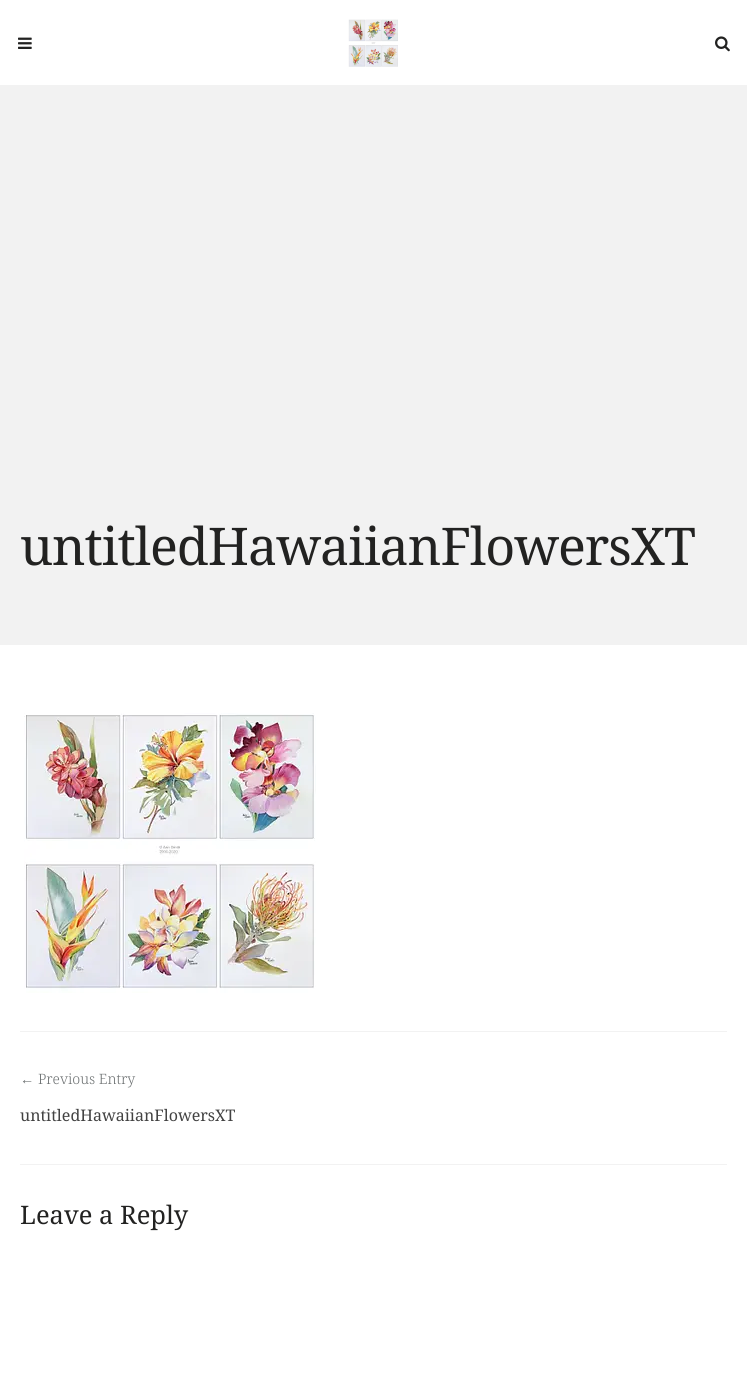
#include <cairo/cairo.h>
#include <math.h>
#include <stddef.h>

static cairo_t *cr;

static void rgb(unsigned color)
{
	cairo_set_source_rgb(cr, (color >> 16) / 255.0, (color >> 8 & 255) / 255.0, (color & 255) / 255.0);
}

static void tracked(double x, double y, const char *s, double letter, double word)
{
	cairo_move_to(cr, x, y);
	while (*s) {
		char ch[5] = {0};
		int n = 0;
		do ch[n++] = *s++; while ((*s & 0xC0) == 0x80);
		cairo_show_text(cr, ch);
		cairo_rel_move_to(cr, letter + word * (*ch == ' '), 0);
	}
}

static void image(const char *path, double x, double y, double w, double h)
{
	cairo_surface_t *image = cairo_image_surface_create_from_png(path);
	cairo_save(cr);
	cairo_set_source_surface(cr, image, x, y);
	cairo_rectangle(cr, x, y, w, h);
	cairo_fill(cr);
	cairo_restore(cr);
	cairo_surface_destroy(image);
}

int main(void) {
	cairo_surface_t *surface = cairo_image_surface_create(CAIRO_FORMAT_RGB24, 747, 1381);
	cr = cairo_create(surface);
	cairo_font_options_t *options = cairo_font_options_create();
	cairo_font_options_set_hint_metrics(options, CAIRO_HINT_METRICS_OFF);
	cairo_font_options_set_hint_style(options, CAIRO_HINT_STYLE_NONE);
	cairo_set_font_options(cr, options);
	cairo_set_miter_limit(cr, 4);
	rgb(0xffffff);
	cairo_paint(cr);
	image("img/1.png", 348, 19, 50, 48);
	image("img/2.png", 18, 37, 14, 12);
	image("img/3.png", 715, 36, 15, 16);
	rgb(0xf2f2f2);
	cairo_rectangle(cr, 0, 85, 747, 560);
	cairo_fill(cr);
	image("img/4.png", 24, 713, 292, 280);
	cairo_rectangle(cr, 20, 1031, 707, 1);
	cairo_fill(cr);
	cairo_rectangle(cr, 20, 1164, 707, 1);
	cairo_fill(cr);
	cairo_select_font_face(cr, "Noto Serif", CAIRO_FONT_SLANT_NORMAL, CAIRO_FONT_WEIGHT_NORMAL);
	cairo_set_font_size(cr, 52);
	rgb(0x222221);
	tracked(20, 565, "untitledHawaiianFlowersXT", -1, 0);
	cairo_select_font_face(cr, "Liberation Serif", CAIRO_FONT_SLANT_NORMAL, CAIRO_FONT_WEIGHT_NORMAL);
	cairo_set_font_size(cr, 14.25);
	rgb(0x6e7273);
	cairo_move_to(cr, 20, 1084);
	cairo_show_text(cr, "←");
	cairo_select_font_face(cr, "Noto Serif Light", CAIRO_FONT_SLANT_NORMAL, CAIRO_FONT_WEIGHT_NORMAL);
	cairo_move_to(cr, 38, 1084);
	cairo_show_text(cr, "Previous Entry");
	cairo_select_font_face(cr, "Noto Serif", CAIRO_FONT_SLANT_NORMAL, CAIRO_FONT_WEIGHT_NORMAL);
	cairo_set_font_size(cr, 16);
	rgb(0x424242);
	cairo_move_to(cr, 20, 1121);
	cairo_show_text(cr, "untitledHawaiianFlowersXT");
	cairo_set_font_size(cr, 25.5);
	rgb(0x222221);
	cairo_move_to(cr, 20, 1224);
	cairo_show_text(cr, "Leave a Reply");
	cairo_surface_write_to_png(surface, "page.png");
	cairo_font_options_destroy(options);
	cairo_destroy(cr);
	cairo_surface_destroy(surface);
	return 0;
}
